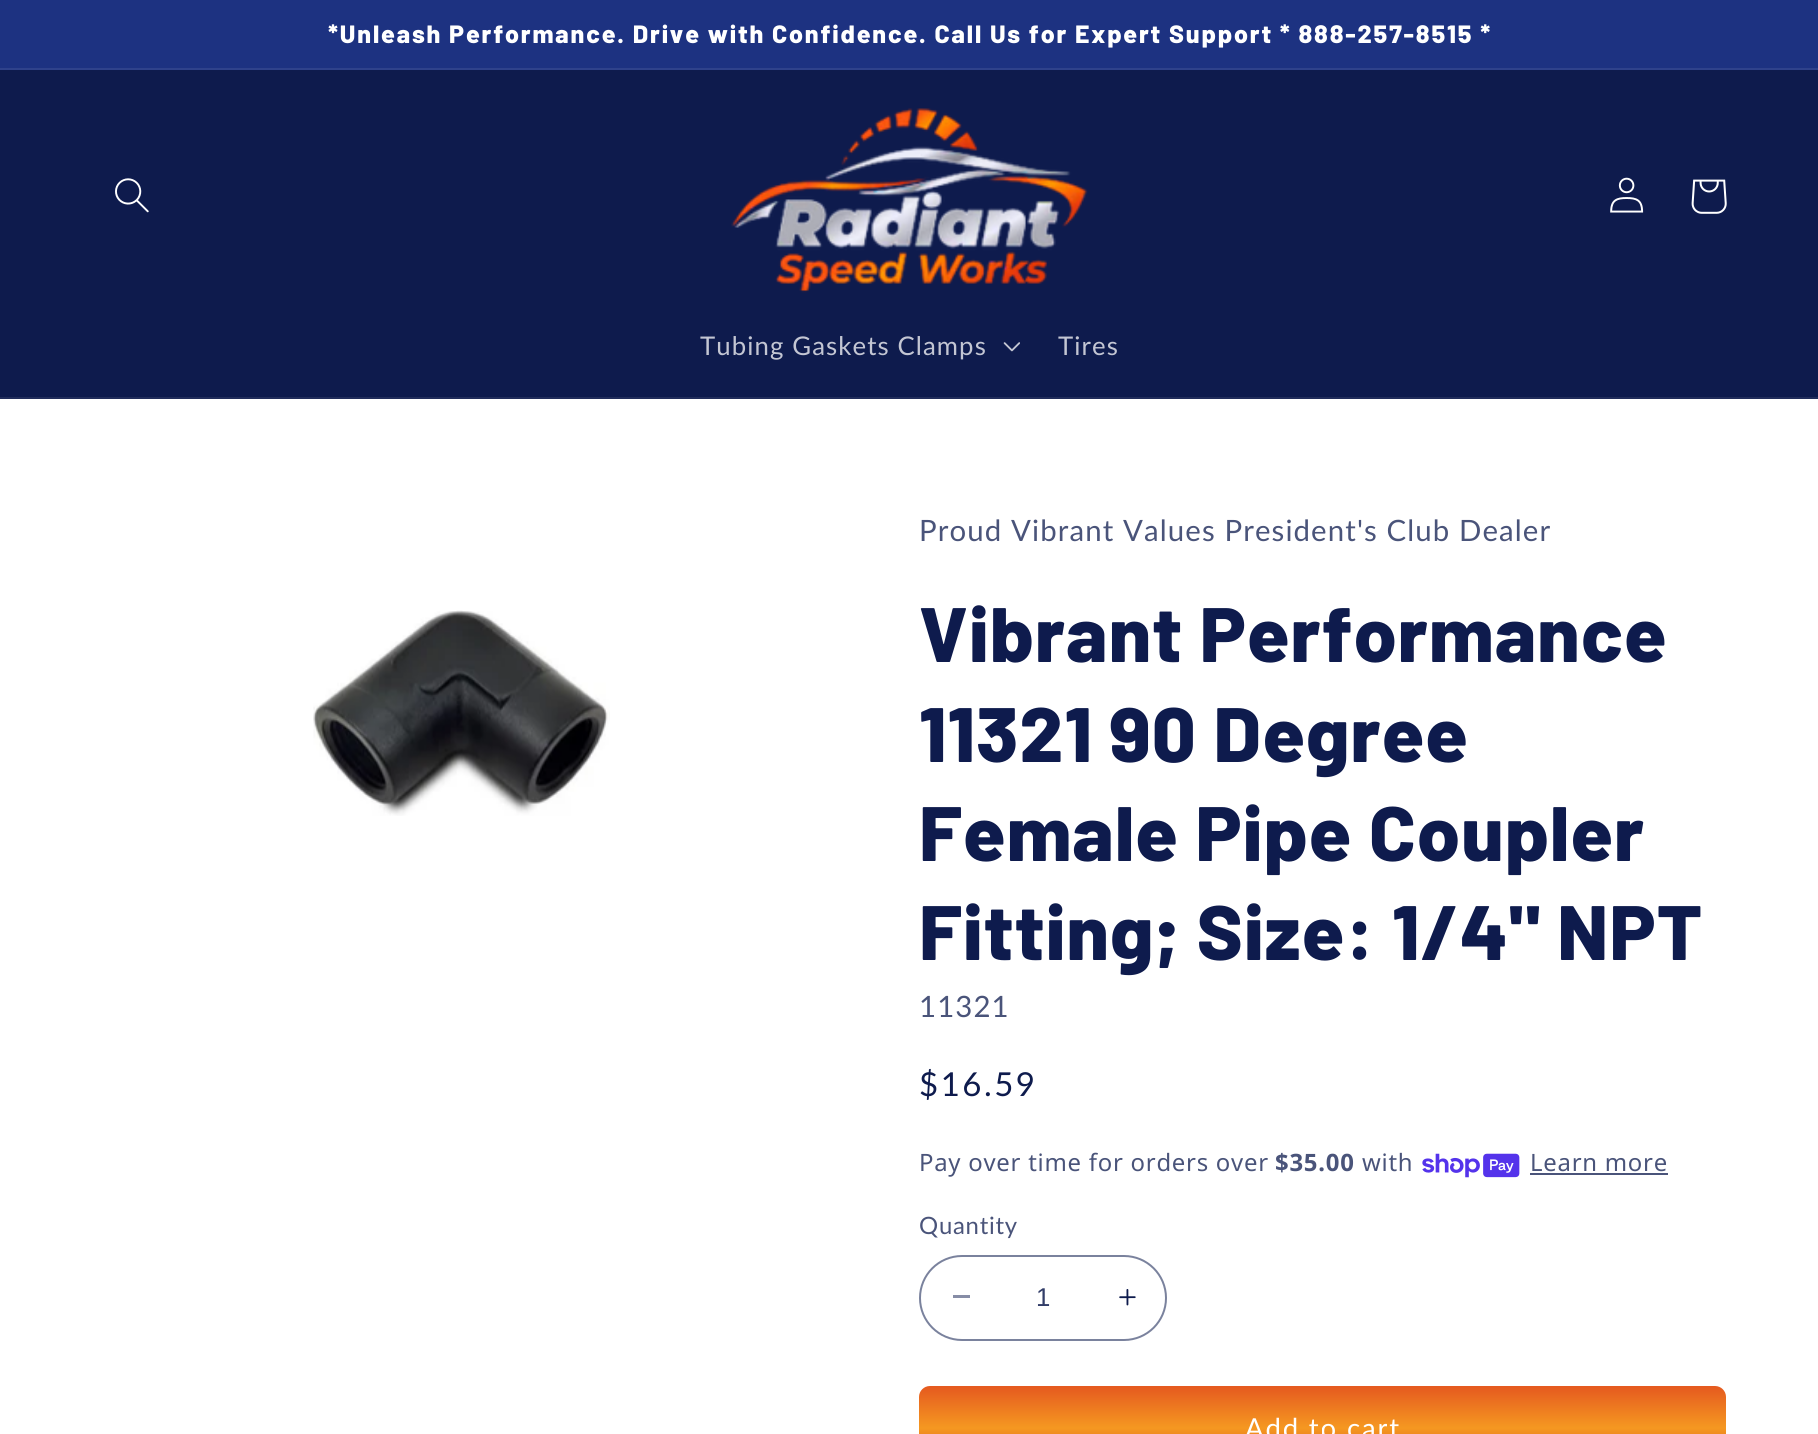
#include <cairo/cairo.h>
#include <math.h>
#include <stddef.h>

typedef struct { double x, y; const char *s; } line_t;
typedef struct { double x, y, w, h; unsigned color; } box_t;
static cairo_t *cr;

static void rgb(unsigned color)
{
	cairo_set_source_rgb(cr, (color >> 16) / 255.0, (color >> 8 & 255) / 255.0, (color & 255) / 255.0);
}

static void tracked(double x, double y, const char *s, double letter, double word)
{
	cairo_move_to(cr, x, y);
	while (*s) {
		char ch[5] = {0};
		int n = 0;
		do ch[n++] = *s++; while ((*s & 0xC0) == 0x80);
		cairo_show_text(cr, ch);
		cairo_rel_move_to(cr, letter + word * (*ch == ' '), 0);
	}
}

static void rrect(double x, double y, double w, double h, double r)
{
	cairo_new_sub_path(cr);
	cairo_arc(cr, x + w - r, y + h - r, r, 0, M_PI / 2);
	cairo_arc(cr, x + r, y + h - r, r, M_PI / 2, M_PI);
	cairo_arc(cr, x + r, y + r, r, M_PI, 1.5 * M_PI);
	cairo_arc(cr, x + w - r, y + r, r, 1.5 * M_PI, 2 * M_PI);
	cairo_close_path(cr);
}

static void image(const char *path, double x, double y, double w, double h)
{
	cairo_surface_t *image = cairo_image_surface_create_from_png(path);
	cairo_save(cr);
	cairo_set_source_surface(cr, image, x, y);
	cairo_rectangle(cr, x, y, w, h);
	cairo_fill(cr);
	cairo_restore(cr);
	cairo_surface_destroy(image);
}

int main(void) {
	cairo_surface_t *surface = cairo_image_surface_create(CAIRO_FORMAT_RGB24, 1818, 1434);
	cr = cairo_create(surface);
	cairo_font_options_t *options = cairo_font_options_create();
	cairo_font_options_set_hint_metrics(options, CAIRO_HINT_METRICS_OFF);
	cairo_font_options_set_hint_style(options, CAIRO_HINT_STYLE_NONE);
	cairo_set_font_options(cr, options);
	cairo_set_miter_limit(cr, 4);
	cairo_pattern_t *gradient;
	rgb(0xffffff);
	cairo_paint(cr);
	{
		static const box_t items[] = {
			{0, 0, 1818, 68, 0x1d3281},
			{0, 68, 1818, 2, 0x2f428b},
			{0, 70, 1818, 327, 0x0e1b4d},
			{0, 397, 1818, 2, 0x212d5b},
		};
		for (size_t i = 0; i < sizeof items / sizeof *items; i++) {
			rgb(items[i].color);
			cairo_rectangle(cr, items[i].x, items[i].y, items[i].w, items[i].h);
			cairo_fill(cr);
		}
	}
	image("img/1.png", 115, 178, 34, 35);
	image("img/2.png", 731, 108, 357, 185);
	image("img/3.png", 1610, 177, 34, 36);
	image("img/4.png", 1691, 179, 36, 35);
	image("img/5.png", 1003, 342, 17, 10);
	image("img/6.png", 313, 610, 297, 206);
	image("img/7.png", 1422, 1153, 98, 25);
	rgb(0x4a547a);
	cairo_rectangle(cr, 1530, 1173, 138, 2);
	cairo_fill(cr);
	rgb(0x878da6);
	cairo_rectangle(cr, 953, 1295, 17, 3);
	cairo_fill(cr);
	image("img/8.png", 1119, 1289, 17, 17);
	rrect(920, 1256, 246, 84, 42);
	rgb(0x7a829d);
	cairo_stroke(cr);
	gradient = cairo_pattern_create_linear(1322, 1386, 1322, 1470);
	cairo_pattern_add_color_stop_rgba(gradient, 0, 0.898, 0.349, 0.122, 1);
	cairo_pattern_add_color_stop_rgba(gradient, 0.5, 0.961, 0.596, 0.129, 1);
	cairo_pattern_add_color_stop_rgba(gradient, 1, 0.804, 0.275, 0.094, 1);
	cairo_set_source(cr, gradient);
	cairo_pattern_destroy(gradient);
	rrect(919, 1386, 807, 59, 11);
	cairo_fill(cr);
	cairo_select_font_face(cr, "Barlow ExtraBold", CAIRO_FONT_SLANT_NORMAL, CAIRO_FONT_WEIGHT_NORMAL);
	cairo_set_font_size(cr, 25.05);
	rgb(0xffffff);
	tracked(328, 43, "*Unleash Performance. Drive with Confidence. Call Us for Expert Support * 888-257-8515 *", 1.85, 0);
	cairo_select_font_face(cr, "Lato", CAIRO_FONT_SLANT_NORMAL, CAIRO_FONT_WEIGHT_NORMAL);
	cairo_set_font_size(cr, 25.75);
	rgb(0xc3c6d3);
	tracked(700, 355, "Tubing Gaskets Clamps", 1.1, 0);
	tracked(1058, 355, "Tires", 1.1, 0);
	cairo_set_font_size(cr, 29.4);
	rgb(0x4a547a);
	tracked(919, 541, "Proud Vibrant Values President's Club Dealer", 1.1, 0);
	cairo_select_font_face(cr, "Barlow ExtraBold", CAIRO_FONT_SLANT_NORMAL, CAIRO_FONT_WEIGHT_NORMAL);
	cairo_set_font_size(cr, 77);
	rgb(0x0e1b4d);
	{
		static const line_t items[] = {
			{919, 662, "Vibrant Performance"},
			{919, 762, "11321 90 Degree"},
			{919, 861, "Female Pipe Coupler"},
			{919, 960, "Fitting; Size: 1/4\" NPT"},
		};
		for (size_t i = 0; i < sizeof items / sizeof *items; i++) {
			tracked(items[i].x, items[i].y, items[i].s, 1.2, 0);
		}
	}
	cairo_select_font_face(cr, "Lato", CAIRO_FONT_SLANT_NORMAL, CAIRO_FONT_WEIGHT_NORMAL);
	cairo_set_font_size(cr, 29.4);
	rgb(0x4a547a);
	tracked(919, 1017, "11321", 1.1, 0);
	cairo_set_font_size(cr, 33);
	rgb(0x0e1b4d);
	tracked(919, 1096, "$16.59", 2.5, 0);
	cairo_select_font_face(cr, "Noto Sans", CAIRO_FONT_SLANT_NORMAL, CAIRO_FONT_WEIGHT_NORMAL);
	cairo_set_font_size(cr, 23.9);
	rgb(0x4a547a);
	tracked(919, 1171, "Pay over time for orders over", 0.75, 0);
	cairo_select_font_face(cr, "Noto Sans", CAIRO_FONT_SLANT_NORMAL, CAIRO_FONT_WEIGHT_BOLD);
	tracked(1275, 1171, "$35.00", 0.75, 0);
	cairo_select_font_face(cr, "Noto Sans", CAIRO_FONT_SLANT_NORMAL, CAIRO_FONT_WEIGHT_NORMAL);
	tracked(1362, 1171, "with", 0.75, 0);
	tracked(1530, 1171, "Learn more", 0.75, 0);
	cairo_select_font_face(cr, "Lato", CAIRO_FONT_SLANT_NORMAL, CAIRO_FONT_WEIGHT_NORMAL);
	tracked(919, 1234, "Quantity", 0.75, 0);
	cairo_select_font_face(cr, "Liberation Sans", CAIRO_FONT_SLANT_NORMAL, CAIRO_FONT_WEIGHT_NORMAL);
	cairo_set_font_size(cr, 25.75);
	rgb(0x323d68);
	cairo_move_to(cr, 1036, 1306);
	cairo_show_text(cr, "1");
	cairo_select_font_face(cr, "Lato", CAIRO_FONT_SLANT_NORMAL, CAIRO_FONT_WEIGHT_NORMAL);
	cairo_set_font_size(cr, 27.5);
	rgb(0xffffff);
	tracked(1245, 1438, "Add to cart", 1.85, 0);
	cairo_surface_write_to_png(surface, "page.png");
	cairo_font_options_destroy(options);
	cairo_destroy(cr);
	cairo_surface_destroy(surface);
	return 0;
}
